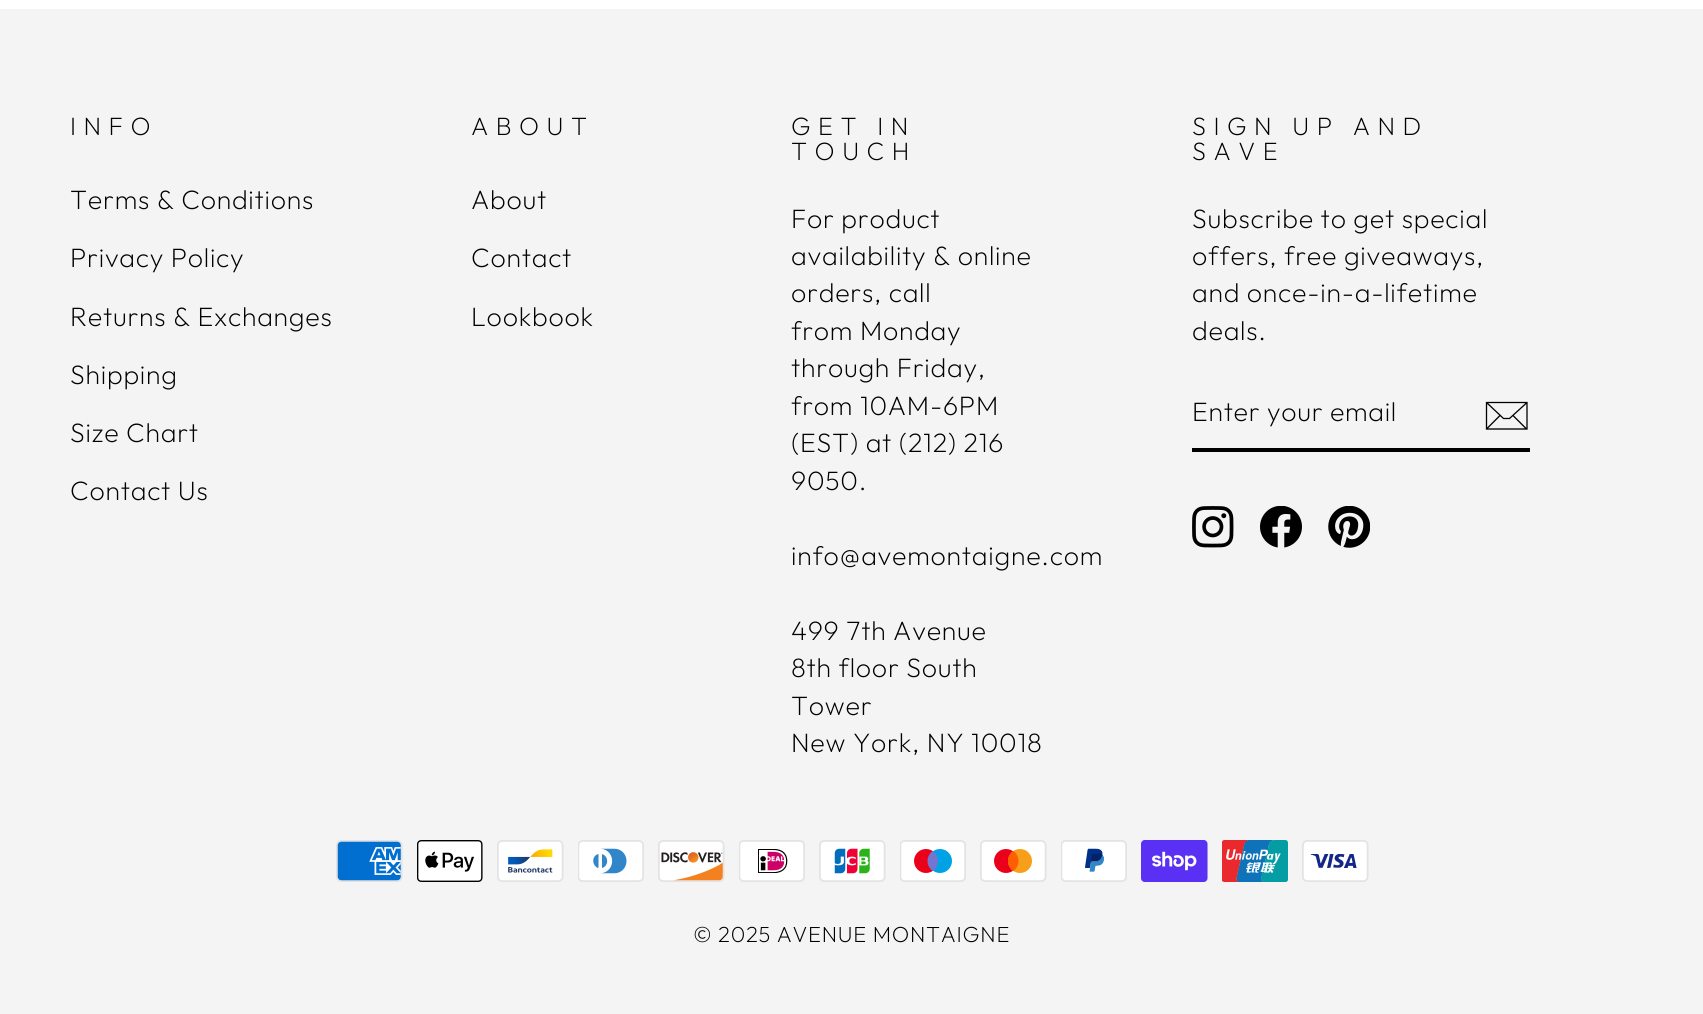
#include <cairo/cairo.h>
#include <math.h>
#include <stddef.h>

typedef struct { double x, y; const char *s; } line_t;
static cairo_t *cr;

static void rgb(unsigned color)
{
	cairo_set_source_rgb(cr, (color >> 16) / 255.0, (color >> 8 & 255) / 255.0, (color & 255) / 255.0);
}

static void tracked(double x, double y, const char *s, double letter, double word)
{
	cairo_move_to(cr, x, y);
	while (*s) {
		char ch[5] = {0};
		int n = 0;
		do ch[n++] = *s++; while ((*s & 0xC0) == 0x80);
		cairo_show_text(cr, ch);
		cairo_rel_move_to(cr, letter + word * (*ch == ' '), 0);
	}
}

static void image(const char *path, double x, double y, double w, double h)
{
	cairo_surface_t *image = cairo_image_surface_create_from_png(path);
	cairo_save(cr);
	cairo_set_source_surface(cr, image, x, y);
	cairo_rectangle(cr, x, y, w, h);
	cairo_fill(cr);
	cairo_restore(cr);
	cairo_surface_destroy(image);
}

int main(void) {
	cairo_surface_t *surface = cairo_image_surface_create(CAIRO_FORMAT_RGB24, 1703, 1014);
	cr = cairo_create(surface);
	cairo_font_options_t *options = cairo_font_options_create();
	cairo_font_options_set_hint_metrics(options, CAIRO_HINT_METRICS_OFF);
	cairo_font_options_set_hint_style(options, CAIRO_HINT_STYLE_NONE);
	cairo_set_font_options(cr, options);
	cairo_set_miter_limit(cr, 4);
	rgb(0xffffff);
	cairo_paint(cr);
	rgb(0xf4f4f4);
	cairo_rectangle(cr, 0, 9, 1703, 1005);
	cairo_fill(cr);
	rgb(0x000000);
	cairo_rectangle(cr, 1192, 448, 338, 4);
	cairo_fill(cr);
	cairo_new_path(cr);
	cairo_move_to(cr, 1527, 429);
	cairo_line_to(cr, 1486.5, 429);
	cairo_line_to(cr, 1486.5, 402.5);
	cairo_line_to(cr, 1527, 402.5);
	cairo_close_path(cr);
	cairo_move_to(cr, 1486.5, 402.5);
	cairo_line_to(cr, 1503.5, 418.5);
	cairo_line_to(cr, 1509.5, 418.5);
	cairo_line_to(cr, 1527, 402.5);
	cairo_move_to(cr, 1500, 415.5);
	cairo_line_to(cr, 1487, 428.5);
	cairo_move_to(cr, 1526.5, 429);
	cairo_line_to(cr, 1513, 415.5);
	cairo_set_line_width(cr, 1.3);
	cairo_stroke(cr);
	image("img/1.png", 1192, 506, 42, 42);
	image("img/2.png", 1260, 506, 42, 42);
	image("img/3.png", 1328, 506, 42, 42);
	image("img/4.png", 336, 840, 67, 42);
	image("img/5.png", 417, 840, 66, 42);
	image("img/6.png", 497, 840, 67, 42);
	image("img/7.png", 578, 840, 66, 42);
	image("img/8.png", 658, 840, 67, 42);
	image("img/9.png", 739, 840, 66, 42);
	image("img/10.png", 819, 840, 67, 42);
	image("img/11.png", 900, 840, 66, 42);
	image("img/12.png", 980, 840, 67, 42);
	image("img/13.png", 1061, 840, 66, 42);
	image("img/14.png", 1141, 840, 67, 42);
	image("img/15.png", 1222, 840, 66, 42);
	image("img/16.png", 1302, 840, 67, 42);
	cairo_select_font_face(cr, "Outfit ExtraLight", CAIRO_FONT_SLANT_NORMAL, CAIRO_FONT_WEIGHT_NORMAL);
	cairo_set_font_size(cr, 25.25);
	tracked(70, 135, "INFO", 7.5, 0);
	cairo_set_font_size(cr, 26.75);
	{
		static const line_t items[] = {
			{70, 209, "Terms & Conditions"},
			{70, 267, "Privacy Policy"},
			{70, 326, "Returns & Exchanges"},
			{70, 384, "Shipping"},
			{70, 442, "Size Chart"},
			{70, 500, "Contact Us"},
		};
		for (size_t i = 0; i < sizeof items / sizeof *items; i++) {
			tracked(items[i].x, items[i].y, items[i].s, 0.75, 0);
		}
	}
	cairo_set_font_size(cr, 25.25);
	tracked(471, 135, "ABOUT", 7.5, 0);
	cairo_set_font_size(cr, 26.75);
	{
		static const line_t items[] = {
			{471, 209, "About"},
			{471, 267, "Contact"},
			{471, 326, "Lookbook"},
		};
		for (size_t i = 0; i < sizeof items / sizeof *items; i++) {
			tracked(items[i].x, items[i].y, items[i].s, 0.75, 0);
		}
	}
	cairo_set_font_size(cr, 25.25);
	tracked(791, 135, "GET IN", 7.5, 0);
	tracked(791, 160, "TOUCH", 7.5, 0);
	cairo_set_font_size(cr, 26.75);
	{
		static const line_t items[] = {
			{791, 228, "For product"},
			{791, 265, "availability & online"},
			{791, 302, "orders, call"},
			{791, 340, "from Monday"},
			{791, 377, "through Friday,"},
			{791, 415, "from 10AM-6PM"},
			{791, 452, "(EST) at (212) 216"},
			{791, 490, "9050."},
			{791, 565, "info@avemontaigne.com"},
			{791, 640, "499 7th Avenue"},
			{791, 677, "8th floor South"},
			{791, 715, "Tower"},
			{791, 752, "New York, NY 10018"},
		};
		for (size_t i = 0; i < sizeof items / sizeof *items; i++) {
			tracked(items[i].x, items[i].y, items[i].s, 0.75, 0);
		}
	}
	cairo_set_font_size(cr, 25.25);
	tracked(1192, 135, "SIGN UP AND", 7.5, 0);
	tracked(1192, 160, "SAVE", 7.5, 0);
	cairo_set_font_size(cr, 26.75);
	{
		static const line_t items[] = {
			{1192, 228, "Subscribe to get special"},
			{1192, 265, "offers, free giveaways,"},
			{1192, 302, "and once-in-a-lifetime"},
			{1192, 340, "deals."},
		};
		for (size_t i = 0; i < sizeof items / sizeof *items; i++) {
			tracked(items[i].x, items[i].y, items[i].s, 0.75, 0);
		}
	}
	tracked(1192, 421, "Enter your email", 0.7, 0);
	cairo_set_font_size(cr, 22);
	tracked(693, 942, "© 2025 AVENUE MONTAIGNE", 0.75, 0);
	cairo_surface_write_to_png(surface, "page.png");
	cairo_font_options_destroy(options);
	cairo_destroy(cr);
	cairo_surface_destroy(surface);
	return 0;
}
